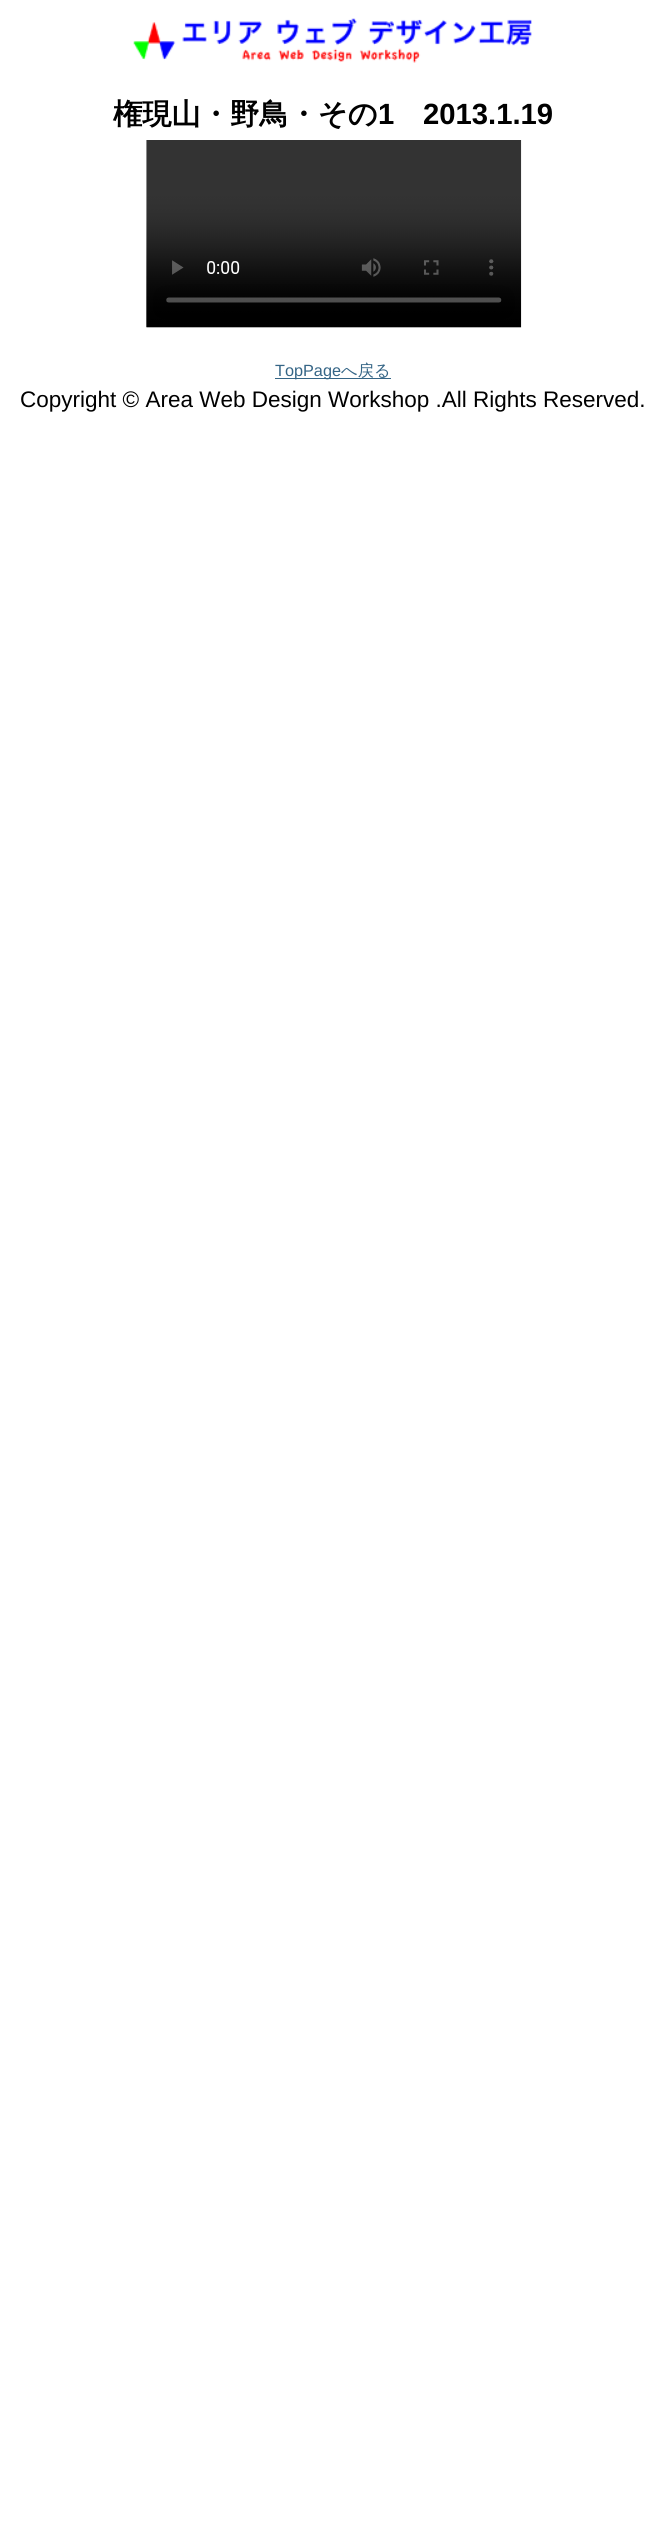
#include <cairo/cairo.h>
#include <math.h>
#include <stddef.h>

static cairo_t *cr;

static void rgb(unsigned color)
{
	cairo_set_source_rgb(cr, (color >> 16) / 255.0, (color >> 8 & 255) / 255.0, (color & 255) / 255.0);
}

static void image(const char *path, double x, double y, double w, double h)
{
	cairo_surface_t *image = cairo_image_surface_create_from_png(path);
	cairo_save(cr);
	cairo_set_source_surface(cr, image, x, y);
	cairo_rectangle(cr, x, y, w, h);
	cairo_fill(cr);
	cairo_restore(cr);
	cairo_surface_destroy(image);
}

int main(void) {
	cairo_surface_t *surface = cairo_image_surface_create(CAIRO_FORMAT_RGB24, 666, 2533);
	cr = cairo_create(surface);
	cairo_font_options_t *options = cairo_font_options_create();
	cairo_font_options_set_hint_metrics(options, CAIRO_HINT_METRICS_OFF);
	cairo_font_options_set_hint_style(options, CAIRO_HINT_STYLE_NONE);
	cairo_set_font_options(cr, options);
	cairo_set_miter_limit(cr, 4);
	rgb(0xffffff);
	cairo_paint(cr);
	image("img/1.png", 133, 18, 399, 45);
	image("img/2.png", 146, 140, 376, 188);
	rgb(0x356586);
	cairo_rectangle(cr, 275, 378, 116, 1);
	cairo_fill(cr);
	cairo_select_font_face(cr, "WenQuanYi Zen Hei", CAIRO_FONT_SLANT_NORMAL, CAIRO_FONT_WEIGHT_BOLD);
	cairo_set_font_size(cr, 29.25);
	rgb(0x000000);
	cairo_move_to(cr, 113, 124);
	cairo_show_text(cr, "権現山・野鳥・その");
	cairo_select_font_face(cr, "Liberation Sans", CAIRO_FONT_SLANT_NORMAL, CAIRO_FONT_WEIGHT_BOLD);
	cairo_move_to(cr, 378, 124);
	cairo_show_text(cr, "1");
	cairo_move_to(cr, 423, 124);
	cairo_show_text(cr, "2013.1.19");
	cairo_select_font_face(cr, "Liberation Sans", CAIRO_FONT_SLANT_NORMAL, CAIRO_FONT_WEIGHT_NORMAL);
	cairo_set_font_size(cr, 16.25);
	rgb(0x356586);
	cairo_move_to(cr, 275, 376);
	cairo_show_text(cr, "TopPage");
	cairo_select_font_face(cr, "WenQuanYi Zen Hei Medium", CAIRO_FONT_SLANT_NORMAL, CAIRO_FONT_WEIGHT_NORMAL);
	cairo_move_to(cr, 341, 376);
	cairo_show_text(cr, "へ戻る");
	cairo_select_font_face(cr, "Liberation Sans", CAIRO_FONT_SLANT_NORMAL, CAIRO_FONT_WEIGHT_NORMAL);
	cairo_set_font_size(cr, 22.5);
	rgb(0x000000);
	cairo_move_to(cr, 20, 407);
	cairo_show_text(cr, "Copyright © Area Web Design Workshop .All Rights Reserved.");
	cairo_surface_write_to_png(surface, "page.png");
	cairo_font_options_destroy(options);
	cairo_destroy(cr);
	cairo_surface_destroy(surface);
	return 0;
}
